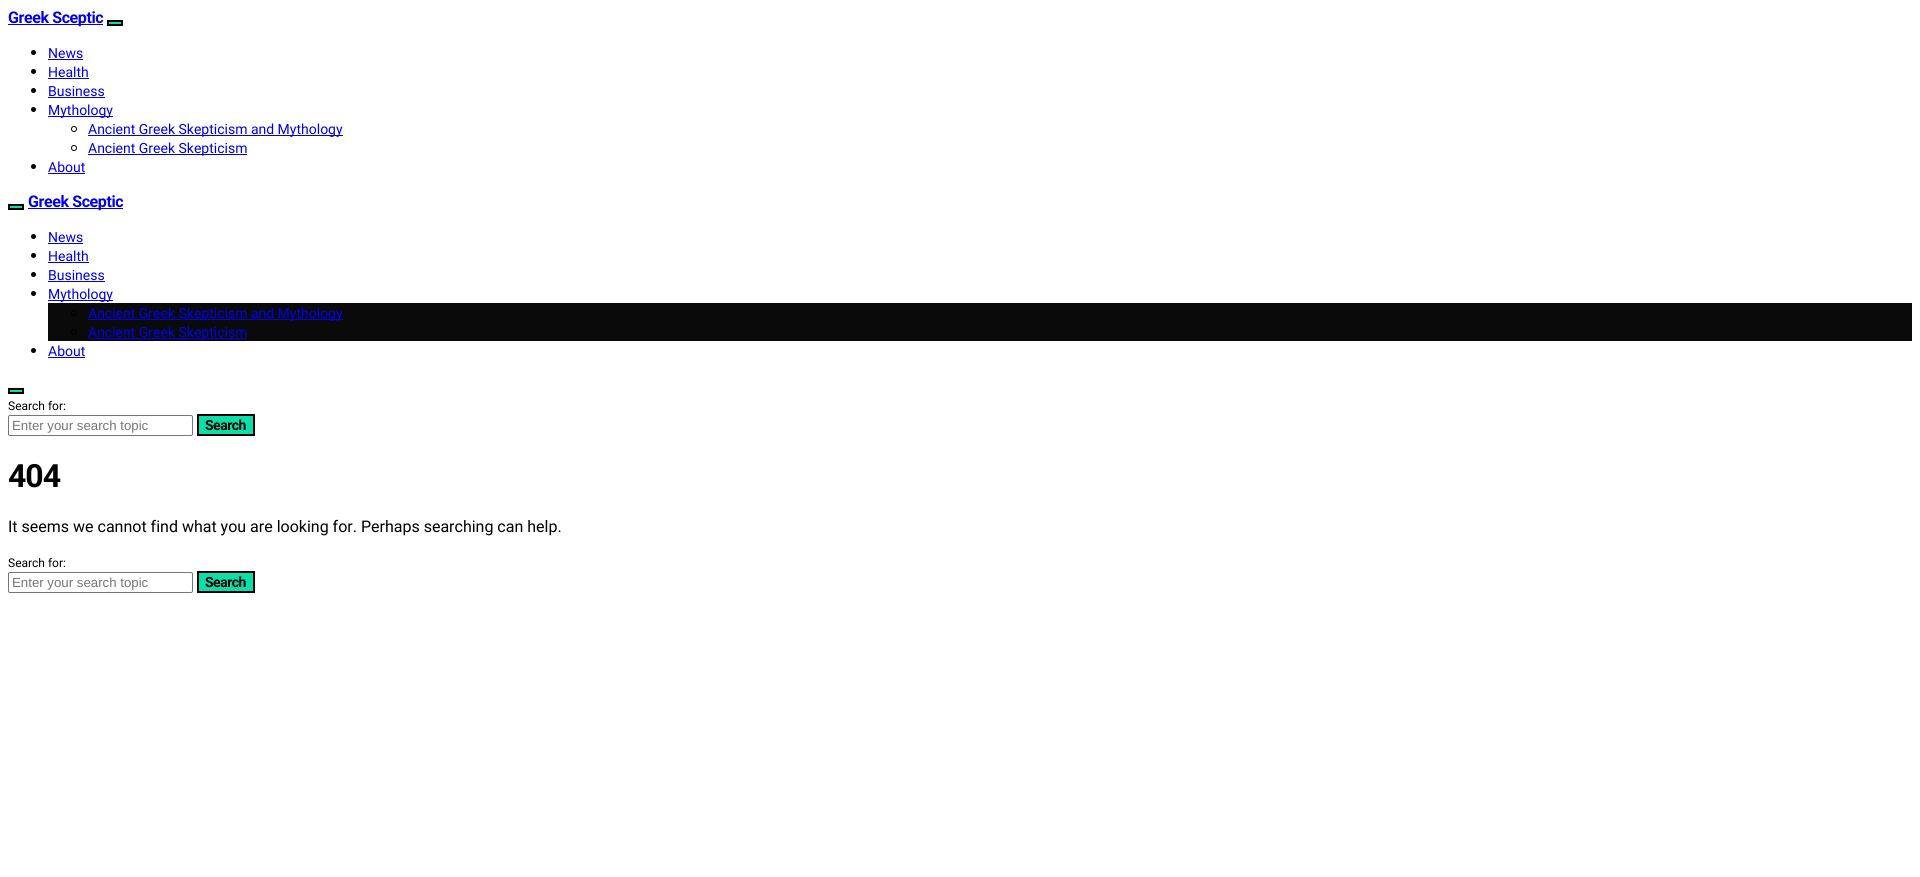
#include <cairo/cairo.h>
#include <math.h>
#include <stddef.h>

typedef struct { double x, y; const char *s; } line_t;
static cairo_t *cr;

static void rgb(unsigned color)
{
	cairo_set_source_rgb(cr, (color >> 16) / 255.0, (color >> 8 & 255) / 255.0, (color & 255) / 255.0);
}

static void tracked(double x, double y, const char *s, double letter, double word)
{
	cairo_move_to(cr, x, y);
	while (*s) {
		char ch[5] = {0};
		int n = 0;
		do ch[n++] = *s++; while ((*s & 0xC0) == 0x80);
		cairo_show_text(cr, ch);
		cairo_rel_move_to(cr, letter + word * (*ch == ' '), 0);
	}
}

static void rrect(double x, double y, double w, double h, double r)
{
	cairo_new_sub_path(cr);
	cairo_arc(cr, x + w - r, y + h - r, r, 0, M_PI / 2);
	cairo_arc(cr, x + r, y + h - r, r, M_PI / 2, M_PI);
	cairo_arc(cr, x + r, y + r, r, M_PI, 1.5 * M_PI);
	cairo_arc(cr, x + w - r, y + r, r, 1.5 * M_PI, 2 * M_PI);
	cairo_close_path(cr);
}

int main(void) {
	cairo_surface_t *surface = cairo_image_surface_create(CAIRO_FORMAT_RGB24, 1920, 877);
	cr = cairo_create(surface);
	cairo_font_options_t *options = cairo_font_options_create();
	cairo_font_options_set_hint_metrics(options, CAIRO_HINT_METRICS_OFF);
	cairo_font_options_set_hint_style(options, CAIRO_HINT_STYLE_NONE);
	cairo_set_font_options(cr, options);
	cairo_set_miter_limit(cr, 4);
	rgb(0xffffff);
	cairo_paint(cr);
	rgb(0x0000ee);
	cairo_rectangle(cr, 8, 24, 95, 1);
	cairo_fill(cr);
	rgb(0x0adea9);
	cairo_rectangle(cr, 108, 21, 14, 4);
	cairo_fill_preserve(cr);
	rgb(0x000000);
	cairo_stroke(cr);
	cairo_arc(cr, 33.5, 52.5, 2.5, 0, 2 * M_PI);
	cairo_fill(cr);
	rgb(0x0000ee);
	cairo_rectangle(cr, 48, 59, 35, 1);
	cairo_fill(cr);
	rgb(0x000000);
	cairo_arc(cr, 33.5, 71.5, 2.5, 0, 2 * M_PI);
	cairo_fill(cr);
	rgb(0x0000ee);
	cairo_rectangle(cr, 48, 78, 41, 1);
	cairo_fill(cr);
	rgb(0x000000);
	cairo_arc(cr, 33.5, 90.5, 2.5, 0, 2 * M_PI);
	cairo_fill(cr);
	rgb(0x0000ee);
	cairo_rectangle(cr, 48, 97, 57, 1);
	cairo_fill(cr);
	rgb(0x000000);
	cairo_arc(cr, 33.5, 109.5, 2.5, 0, 2 * M_PI);
	cairo_fill(cr);
	rgb(0x0000ee);
	cairo_rectangle(cr, 48, 116, 65, 1);
	cairo_fill(cr);
	cairo_arc(cr, 74, 129, 2.5, 0, 2 * M_PI);
	rgb(0x000000);
	cairo_set_line_width(cr, 1);
	cairo_stroke(cr);
	rgb(0x0000ee);
	cairo_rectangle(cr, 88, 135, 255, 1);
	cairo_fill(cr);
	cairo_arc(cr, 74, 148, 2.5, 0, 2 * M_PI);
	rgb(0x000000);
	cairo_stroke(cr);
	rgb(0x0000ee);
	cairo_rectangle(cr, 88, 154, 159, 1);
	cairo_fill(cr);
	rgb(0x000000);
	cairo_arc(cr, 33.5, 166.5, 2.5, 0, 2 * M_PI);
	cairo_fill(cr);
	rgb(0x0000ee);
	cairo_rectangle(cr, 48, 173, 37, 1);
	cairo_fill(cr);
	rgb(0x0adea9);
	cairo_rectangle(cr, 9, 205, 14, 4);
	cairo_fill_preserve(cr);
	rgb(0x000000);
	cairo_set_line_width(cr, 2);
	cairo_stroke(cr);
	rgb(0x0000ee);
	cairo_rectangle(cr, 28, 208, 95, 1);
	cairo_fill(cr);
	rgb(0x000000);
	cairo_arc(cr, 33.5, 236.5, 2.5, 0, 2 * M_PI);
	cairo_fill(cr);
	rgb(0x0000ee);
	cairo_rectangle(cr, 48, 243, 35, 1);
	cairo_fill(cr);
	rgb(0x000000);
	cairo_arc(cr, 33.5, 255.5, 2.5, 0, 2 * M_PI);
	cairo_fill(cr);
	rgb(0x0000ee);
	cairo_rectangle(cr, 48, 262, 41, 1);
	cairo_fill(cr);
	rgb(0x000000);
	cairo_arc(cr, 33.5, 274.5, 2.5, 0, 2 * M_PI);
	cairo_fill(cr);
	rgb(0x0000ee);
	cairo_rectangle(cr, 48, 281, 57, 1);
	cairo_fill(cr);
	rgb(0x000000);
	cairo_arc(cr, 33.5, 293.5, 2.5, 0, 2 * M_PI);
	cairo_fill(cr);
	rgb(0x0000ee);
	cairo_rectangle(cr, 48, 300, 65, 1);
	cairo_fill(cr);
	rgb(0x0a0a0a);
	cairo_rectangle(cr, 48, 303, 1864, 38);
	cairo_fill(cr);
	cairo_arc(cr, 74, 313, 2.5, 0, 2 * M_PI);
	rgb(0x000000);
	cairo_set_line_width(cr, 1);
	cairo_stroke(cr);
	rgb(0x0000ee);
	cairo_rectangle(cr, 88, 319, 255, 1);
	cairo_fill(cr);
	cairo_arc(cr, 74, 332, 2.5, 0, 2 * M_PI);
	rgb(0x000000);
	cairo_stroke(cr);
	rgb(0x0000ee);
	cairo_rectangle(cr, 88, 338, 159, 1);
	cairo_fill(cr);
	rgb(0x000000);
	cairo_arc(cr, 33.5, 350.5, 2.5, 0, 2 * M_PI);
	cairo_fill(cr);
	rgb(0x0000ee);
	cairo_rectangle(cr, 48, 357, 37, 1);
	cairo_fill(cr);
	rgb(0x0adea9);
	cairo_rectangle(cr, 9, 389, 14, 4);
	cairo_fill_preserve(cr);
	rgb(0x000000);
	cairo_set_line_width(cr, 2);
	cairo_stroke(cr);
	rrect(8.5, 415.5, 184, 20, 1.5);
	rgb(0x767676);
	cairo_set_line_width(cr, 1);
	cairo_stroke(cr);
	rgb(0x0adea9);
	cairo_rectangle(cr, 198, 415, 56, 20);
	cairo_fill_preserve(cr);
	rgb(0x000000);
	cairo_set_line_width(cr, 2);
	cairo_stroke(cr);
	rrect(8.5, 572.5, 184, 20, 1.5);
	rgb(0x767676);
	cairo_set_line_width(cr, 1);
	cairo_stroke(cr);
	rgb(0x0adea9);
	cairo_rectangle(cr, 198, 572, 56, 20);
	cairo_fill_preserve(cr);
	rgb(0x000000);
	cairo_set_line_width(cr, 2);
	cairo_stroke(cr);
	cairo_select_font_face(cr, "Roboto", CAIRO_FONT_SLANT_NORMAL, CAIRO_FONT_WEIGHT_BOLD);
	cairo_set_font_size(cr, 16);
	rgb(0x0000ee);
	tracked(8, 23, "Greek Sceptic", -0.4, 0);
	cairo_select_font_face(cr, "Roboto", CAIRO_FONT_SLANT_NORMAL, CAIRO_FONT_WEIGHT_NORMAL);
	cairo_set_font_size(cr, 14);
	{
		static const line_t items[] = {
			{48, 58, "News"},
			{48, 77, "Health"},
			{48, 96, "Business"},
			{48, 115, "Mythology"},
			{88, 134, "Ancient Greek Skepticism and Mythology"},
			{88, 153, "Ancient Greek Skepticism"},
			{48, 172, "About"},
		};
		for (size_t i = 0; i < sizeof items / sizeof *items; i++) {
			cairo_move_to(cr, items[i].x, items[i].y);
			cairo_show_text(cr, items[i].s);
		}
	}
	cairo_select_font_face(cr, "Roboto", CAIRO_FONT_SLANT_NORMAL, CAIRO_FONT_WEIGHT_BOLD);
	cairo_set_font_size(cr, 16);
	tracked(28, 207, "Greek Sceptic", -0.4, 0);
	cairo_select_font_face(cr, "Roboto", CAIRO_FONT_SLANT_NORMAL, CAIRO_FONT_WEIGHT_NORMAL);
	cairo_set_font_size(cr, 14);
	{
		static const line_t items[] = {
			{48, 242, "News"},
			{48, 261, "Health"},
			{48, 280, "Business"},
			{48, 299, "Mythology"},
			{88, 318, "Ancient Greek Skepticism and Mythology"},
			{88, 337, "Ancient Greek Skepticism"},
			{48, 356, "About"},
		};
		for (size_t i = 0; i < sizeof items / sizeof *items; i++) {
			cairo_move_to(cr, items[i].x, items[i].y);
			cairo_show_text(cr, items[i].s);
		}
	}
	cairo_set_font_size(cr, 12);
	rgb(0x000000);
	cairo_move_to(cr, 8, 410);
	cairo_show_text(cr, "Search for:");
	cairo_select_font_face(cr, "Liberation Sans", CAIRO_FONT_SLANT_NORMAL, CAIRO_FONT_WEIGHT_NORMAL);
	cairo_set_font_size(cr, 13.25);
	rgb(0x757575);
	cairo_move_to(cr, 12, 430);
	cairo_show_text(cr, "Enter your search topic");
	cairo_select_font_face(cr, "Roboto", CAIRO_FONT_SLANT_NORMAL, CAIRO_FONT_WEIGHT_BOLD);
	cairo_set_font_size(cr, 14);
	rgb(0x000000);
	tracked(205, 430, "Search", -0.5, 0);
	cairo_set_font_size(cr, 32);
	tracked(8, 487, "404", -1, 0);
	cairo_select_font_face(cr, "Roboto", CAIRO_FONT_SLANT_NORMAL, CAIRO_FONT_WEIGHT_NORMAL);
	cairo_set_font_size(cr, 16);
	cairo_move_to(cr, 8, 532);
	cairo_show_text(cr, "It seems we cannot find what you are looking for. Perhaps searching can help.");
	cairo_set_font_size(cr, 12);
	cairo_move_to(cr, 8, 567);
	cairo_show_text(cr, "Search for:");
	cairo_select_font_face(cr, "Liberation Sans", CAIRO_FONT_SLANT_NORMAL, CAIRO_FONT_WEIGHT_NORMAL);
	cairo_set_font_size(cr, 13.25);
	rgb(0x757575);
	cairo_move_to(cr, 12, 587);
	cairo_show_text(cr, "Enter your search topic");
	cairo_select_font_face(cr, "Roboto", CAIRO_FONT_SLANT_NORMAL, CAIRO_FONT_WEIGHT_BOLD);
	cairo_set_font_size(cr, 14);
	rgb(0x000000);
	tracked(205, 587, "Search", -0.5, 0);
	cairo_surface_write_to_png(surface, "page.png");
	cairo_font_options_destroy(options);
	cairo_destroy(cr);
	cairo_surface_destroy(surface);
	return 0;
}
